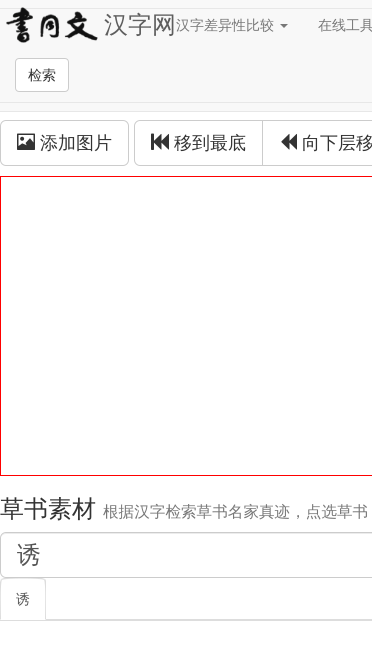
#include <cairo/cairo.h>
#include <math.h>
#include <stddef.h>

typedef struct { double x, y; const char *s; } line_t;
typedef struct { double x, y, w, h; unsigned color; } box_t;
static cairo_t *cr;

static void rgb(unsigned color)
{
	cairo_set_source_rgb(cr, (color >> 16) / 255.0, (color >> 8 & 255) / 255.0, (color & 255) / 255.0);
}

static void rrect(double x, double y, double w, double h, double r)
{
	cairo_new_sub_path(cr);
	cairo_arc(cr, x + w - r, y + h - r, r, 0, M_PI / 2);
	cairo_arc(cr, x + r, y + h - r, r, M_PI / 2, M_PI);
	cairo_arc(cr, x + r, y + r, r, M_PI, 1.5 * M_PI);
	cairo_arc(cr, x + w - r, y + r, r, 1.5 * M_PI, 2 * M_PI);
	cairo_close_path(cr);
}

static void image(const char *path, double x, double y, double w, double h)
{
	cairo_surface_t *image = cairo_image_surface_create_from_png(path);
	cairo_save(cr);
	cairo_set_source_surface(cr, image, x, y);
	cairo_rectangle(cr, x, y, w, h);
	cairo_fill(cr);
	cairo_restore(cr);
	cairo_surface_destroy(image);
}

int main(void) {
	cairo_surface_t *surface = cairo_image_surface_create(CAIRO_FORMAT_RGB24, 372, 650);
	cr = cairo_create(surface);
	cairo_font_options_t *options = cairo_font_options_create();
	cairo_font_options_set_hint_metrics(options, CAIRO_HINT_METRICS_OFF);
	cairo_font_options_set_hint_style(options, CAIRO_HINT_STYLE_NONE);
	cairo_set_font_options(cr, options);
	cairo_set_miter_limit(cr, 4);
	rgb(0xffffff);
	cairo_paint(cr);
	{
		static const box_t items[] = {
			{0, 0, 372, 111, 0xf8f8f8},
			{0, 111, 372, 1, 0xe7e7e7},
			{0, 8, 372, 1, 0xe7e7e7},
		};
		for (size_t i = 0; i < sizeof items / sizeof *items; i++) {
			rgb(items[i].color);
			cairo_rectangle(cr, items[i].x, items[i].y, items[i].w, items[i].h);
			cairo_fill(cr);
		}
	}
	image("img/1.png", 6, 7, 92, 36);
	rgb(0x777777);
	cairo_new_path(cr);
	cairo_move_to(cr, 280, 24);
	cairo_line_to(cr, 288, 24);
	cairo_line_to(cr, 284, 28);
	cairo_close_path(cr);
	cairo_fill(cr);
	rgb(0xe7e7e7);
	cairo_rectangle(cr, 0, 102, 372, 1);
	cairo_fill(cr);
	rgb(0xffffff);
	rrect(15.5, 58.5, 53, 33, 3.5);
	cairo_fill_preserve(cr);
	rgb(0xcccccc);
	cairo_set_line_width(cr, 1);
	cairo_stroke(cr);
	rrect(0.5, 120.5, 128, 45, 5.5);
	cairo_stroke(cr);
	image("img/2.png", 17, 133, 18, 17);
	cairo_new_path(cr);
	cairo_move_to(cr, 140, 120.5);
	cairo_line_to(cr, 262.5, 120.5);
	cairo_line_to(cr, 262.5, 165.5);
	cairo_line_to(cr, 140, 165.5);
	cairo_curve_to(cr, 137, 165.5, 134.5, 163, 134.5, 160);
	cairo_line_to(cr, 134.5, 126);
	cairo_curve_to(cr, 134.5, 123, 137, 120.5, 140, 120.5);
	cairo_close_path(cr);
	cairo_stroke(cr);
	image("img/3.png", 151, 133, 18, 17);
	cairo_rectangle(cr, 262.5, 120.5, 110, 45);
	cairo_stroke(cr);
	image("img/4.png", 281, 133, 16, 17);
	cairo_rectangle(cr, 0.5, 176.5, 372, 299);
	rgb(0xff0000);
	cairo_stroke(cr);
	rgb(0xececec);
	cairo_new_path(cr);
	cairo_move_to(cr, 6, 534);
	cairo_line_to(cr, 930, 534);
	cairo_line_to(cr, 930, 533);
	cairo_line_to(cr, 6, 533);
	cairo_curve_to(cr, 3, 533, 1, 536, 1, 539);
	cairo_curve_to(cr, 1, 536, 3, 534, 6, 534);
	cairo_close_path(cr);
	cairo_fill(cr);
	cairo_new_path(cr);
	cairo_move_to(cr, 6, 532.5);
	cairo_line_to(cr, 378.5, 532.5);
	cairo_line_to(cr, 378.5, 577.5);
	cairo_line_to(cr, 6, 577.5);
	cairo_curve_to(cr, 3, 577.5, 0.5, 575, 0.5, 572);
	cairo_line_to(cr, 0.5, 538);
	cairo_curve_to(cr, 0.5, 535, 3, 532.5, 6, 532.5);
	cairo_close_path(cr);
	rgb(0xcccccc);
	cairo_stroke(cr);
	rgb(0xdddddd);
	cairo_rectangle(cr, 46, 619, 326, 1);
	cairo_fill(cr);
	cairo_new_path(cr);
	cairo_move_to(cr, 4, 578);
	cairo_line_to(cr, 1, 579);
	cairo_line_to(cr, 2, 580);
	cairo_curve_to(cr, 3, 578, 43, 578, 44, 580);
	cairo_line_to(cr, 45, 579);
	cairo_line_to(cr, 42, 578);
	cairo_close_path(cr);
	cairo_fill(cr);
	cairo_new_path(cr);
	cairo_move_to(cr, 46, 620);
	cairo_line_to(cr, 46, 582);
	cairo_curve_to(cr, 46, 581, 46, 580, 45, 579);
	cairo_line_to(cr, 44, 580);
	cairo_curve_to(cr, 46, 582, 45, 614, 45, 619);
	cairo_close_path(cr);
	cairo_move_to(cr, 0, 620);
	cairo_line_to(cr, 1, 619);
	cairo_curve_to(cr, 1, 614, 0, 582, 2, 580);
	cairo_line_to(cr, 1, 579);
	cairo_line_to(cr, 0, 582);
	cairo_close_path(cr);
	cairo_fill(cr);
	cairo_rectangle(cr, 0, 620, 372, 1);
	cairo_fill(cr);
	cairo_select_font_face(cr, "WenQuanYi Zen Hei Medium", CAIRO_FONT_SLANT_NORMAL, CAIRO_FONT_WEIGHT_NORMAL);
	cairo_set_font_size(cr, 24);
	rgb(0x5e5e5e);
	cairo_move_to(cr, 104, 33);
	cairo_show_text(cr, "汉字网");
	cairo_set_font_size(cr, 14);
	rgb(0x777777);
	cairo_move_to(cr, 176, 30);
	cairo_show_text(cr, "汉字差异性比较");
	cairo_move_to(cr, 318, 30);
	cairo_show_text(cr, "在线工具");
	rgb(0x333333);
	cairo_move_to(cr, 28, 80);
	cairo_show_text(cr, "检索");
	cairo_set_font_size(cr, 18);
	{
		static const line_t items[] = {
			{40, 149, "添加图片"},
			{174, 149, "移到最底"},
			{302, 149, "向下层移"},
		};
		for (size_t i = 0; i < sizeof items / sizeof *items; i++) {
			cairo_move_to(cr, items[i].x, items[i].y);
			cairo_show_text(cr, items[i].s);
		}
	}
	cairo_set_font_size(cr, 24);
	cairo_move_to(cr, 0, 517);
	cairo_show_text(cr, "草书素材");
	cairo_set_font_size(cr, 15.6);
	rgb(0x777777);
	cairo_move_to(cr, 103, 517);
	cairo_show_text(cr, "根据汉字检索草书名家真迹，点选草书");
	cairo_set_font_size(cr, 24);
	rgb(0x555555);
	cairo_move_to(cr, 17, 563);
	cairo_show_text(cr, "诱");
	cairo_set_font_size(cr, 14);
	cairo_move_to(cr, 16, 604);
	cairo_show_text(cr, "诱");
	cairo_surface_write_to_png(surface, "page.png");
	cairo_font_options_destroy(options);
	cairo_destroy(cr);
	cairo_surface_destroy(surface);
	return 0;
}
